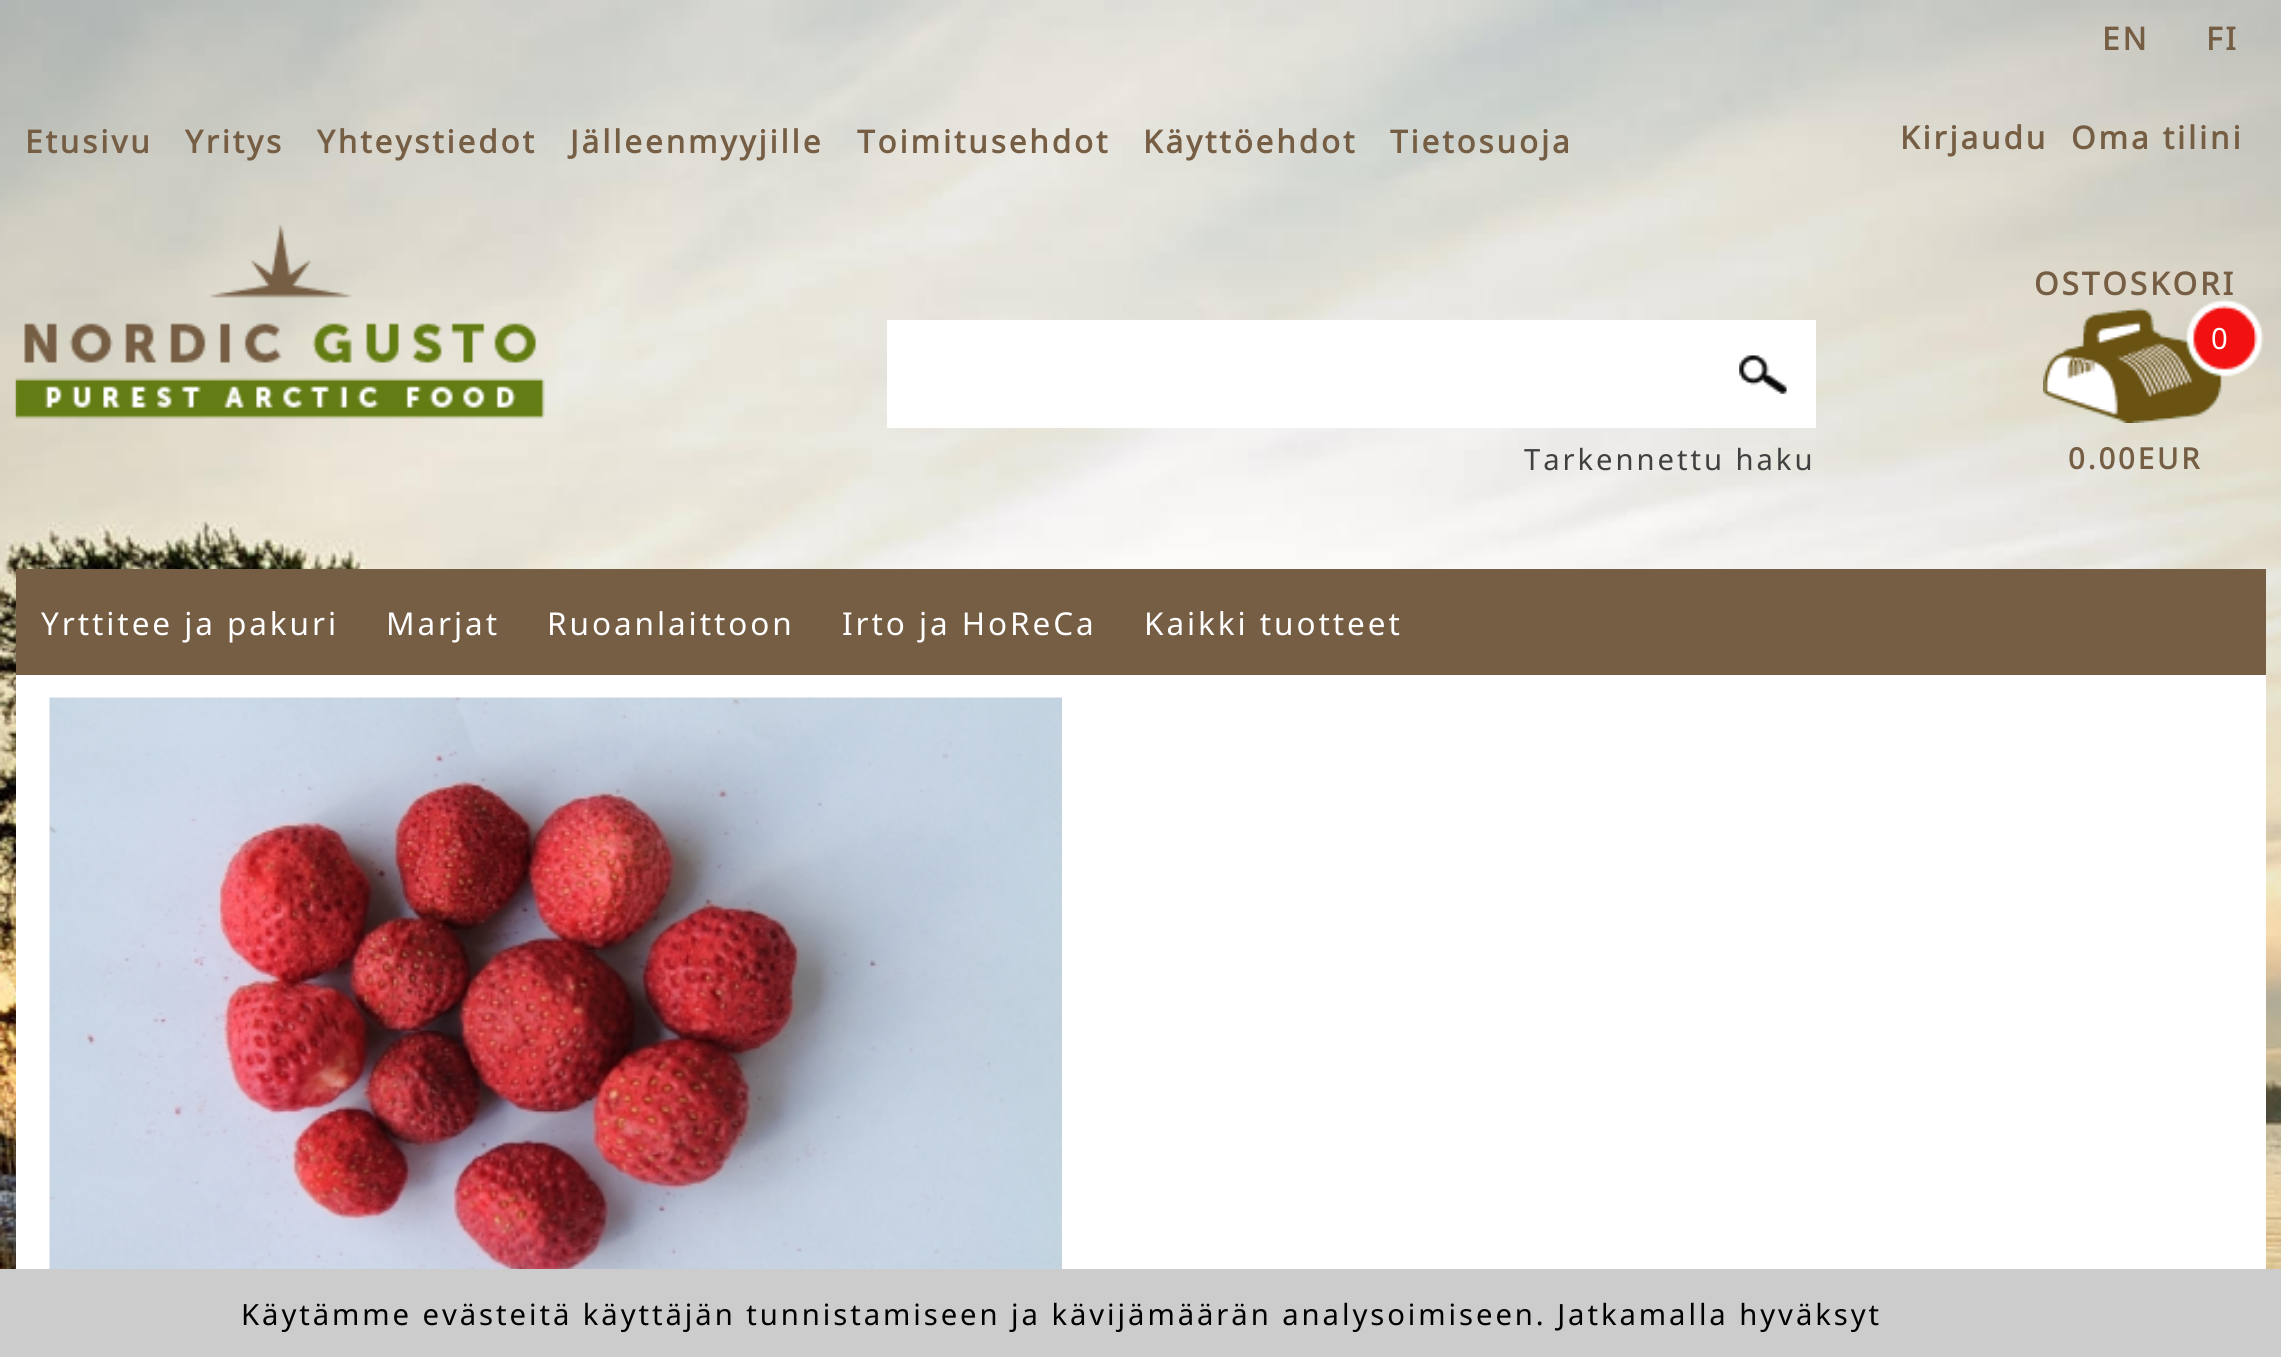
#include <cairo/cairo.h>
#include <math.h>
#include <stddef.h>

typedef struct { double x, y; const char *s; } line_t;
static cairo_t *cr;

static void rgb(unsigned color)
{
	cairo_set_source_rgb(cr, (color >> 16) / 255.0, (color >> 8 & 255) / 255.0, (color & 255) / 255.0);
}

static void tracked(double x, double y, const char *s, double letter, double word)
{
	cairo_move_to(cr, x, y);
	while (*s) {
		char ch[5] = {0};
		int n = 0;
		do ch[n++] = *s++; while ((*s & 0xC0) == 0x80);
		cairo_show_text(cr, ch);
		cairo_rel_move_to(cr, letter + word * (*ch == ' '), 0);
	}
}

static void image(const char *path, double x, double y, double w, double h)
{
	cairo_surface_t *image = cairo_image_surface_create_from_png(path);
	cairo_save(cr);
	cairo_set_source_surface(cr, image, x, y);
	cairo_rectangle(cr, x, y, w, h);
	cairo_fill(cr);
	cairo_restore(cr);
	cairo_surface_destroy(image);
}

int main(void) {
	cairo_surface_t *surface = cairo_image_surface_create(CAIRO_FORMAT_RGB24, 2281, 1357);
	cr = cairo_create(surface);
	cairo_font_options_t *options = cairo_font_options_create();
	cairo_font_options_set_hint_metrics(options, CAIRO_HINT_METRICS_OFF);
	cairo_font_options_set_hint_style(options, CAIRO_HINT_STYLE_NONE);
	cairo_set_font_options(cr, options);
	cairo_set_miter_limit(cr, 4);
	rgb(0xffffff);
	cairo_paint(cr);
	image("img/1.png", 0, 0, 2281, 1269);
	image("img/2.png", 15, 225, 530, 194);
	rgb(0xffffff);
	cairo_rectangle(cr, 887, 320, 929, 108);
	cairo_fill(cr);
	image("img/3.png", 1739, 355, 48, 39);
	image("img/4.png", 2043, 299, 221, 124);
	rgb(0x765e45);
	cairo_rectangle(cr, 16, 569, 2250, 106);
	cairo_fill(cr);
	rgb(0xffffff);
	cairo_rectangle(cr, 16, 675, 2250, 594);
	cairo_fill(cr);
	image("img/5.png", 49, 697, 1013, 572);
	rgb(0xcccccc);
	cairo_rectangle(cr, 0, 1269, 2281, 88);
	cairo_fill(cr);
	cairo_select_font_face(cr, "Noto Sans", CAIRO_FONT_SLANT_NORMAL, CAIRO_FONT_WEIGHT_BOLD);
	cairo_set_font_size(cr, 31.5);
	rgb(0x765e45);
	{
		static const line_t items[] = {
			{2102, 50, "EN"},
			{2206, 50, "FI"},
			{25, 153, "Etusivu"},
			{185, 153, "Yritys"},
			{317, 153, "Yhteystiedot"},
			{570, 153, "Jälleenmyyjille"},
			{857, 153, "Toimitusehdot"},
			{1143, 153, "Käyttöehdot"},
			{1390, 153, "Tietosuoja"},
			{1900, 149, "Kirjaudu"},
			{2071, 149, "Oma tilini"},
			{2034, 295, "OSTOSKORI"},
		};
		for (size_t i = 0; i < sizeof items / sizeof *items; i++) {
			tracked(items[i].x, items[i].y, items[i].s, 2.93, 0);
		}
	}
	cairo_select_font_face(cr, "Noto Sans", CAIRO_FONT_SLANT_NORMAL, CAIRO_FONT_WEIGHT_NORMAL);
	cairo_set_font_size(cr, 29.25);
	rgb(0x404040);
	tracked(1524, 470, "Tarkennettu haku", 2.93, 0);
	rgb(0xffffff);
	tracked(2211, 349, "0", 2.93, 0);
	cairo_select_font_face(cr, "Noto Sans", CAIRO_FONT_SLANT_NORMAL, CAIRO_FONT_WEIGHT_BOLD);
	rgb(0x765e45);
	tracked(2068, 469, "0.00EUR", 2.93, 0);
	cairo_select_font_face(cr, "Noto Sans", CAIRO_FONT_SLANT_NORMAL, CAIRO_FONT_WEIGHT_NORMAL);
	cairo_set_font_size(cr, 31.5);
	rgb(0xffffff);
	{
		static const line_t items[] = {
			{41, 635, "Yrttitee ja pakuri"},
			{386, 635, "Marjat"},
			{547, 635, "Ruoanlaittoon"},
			{842, 635, "Irto ja HoReCa"},
			{1144, 635, "Kaikki tuotteet"},
		};
		for (size_t i = 0; i < sizeof items / sizeof *items; i++) {
			tracked(items[i].x, items[i].y, items[i].s, 2.93, 0);
		}
	}
	cairo_set_font_size(cr, 29.25);
	rgb(0x000000);
	tracked(241, 1325, "Käytämme evästeitä käyttäjän tunnistamiseen ja kävijämäärän analysoimiseen. Jatkamalla hyväksyt", 2.93, 0);
	cairo_surface_write_to_png(surface, "page.png");
	cairo_font_options_destroy(options);
	cairo_destroy(cr);
	cairo_surface_destroy(surface);
	return 0;
}
